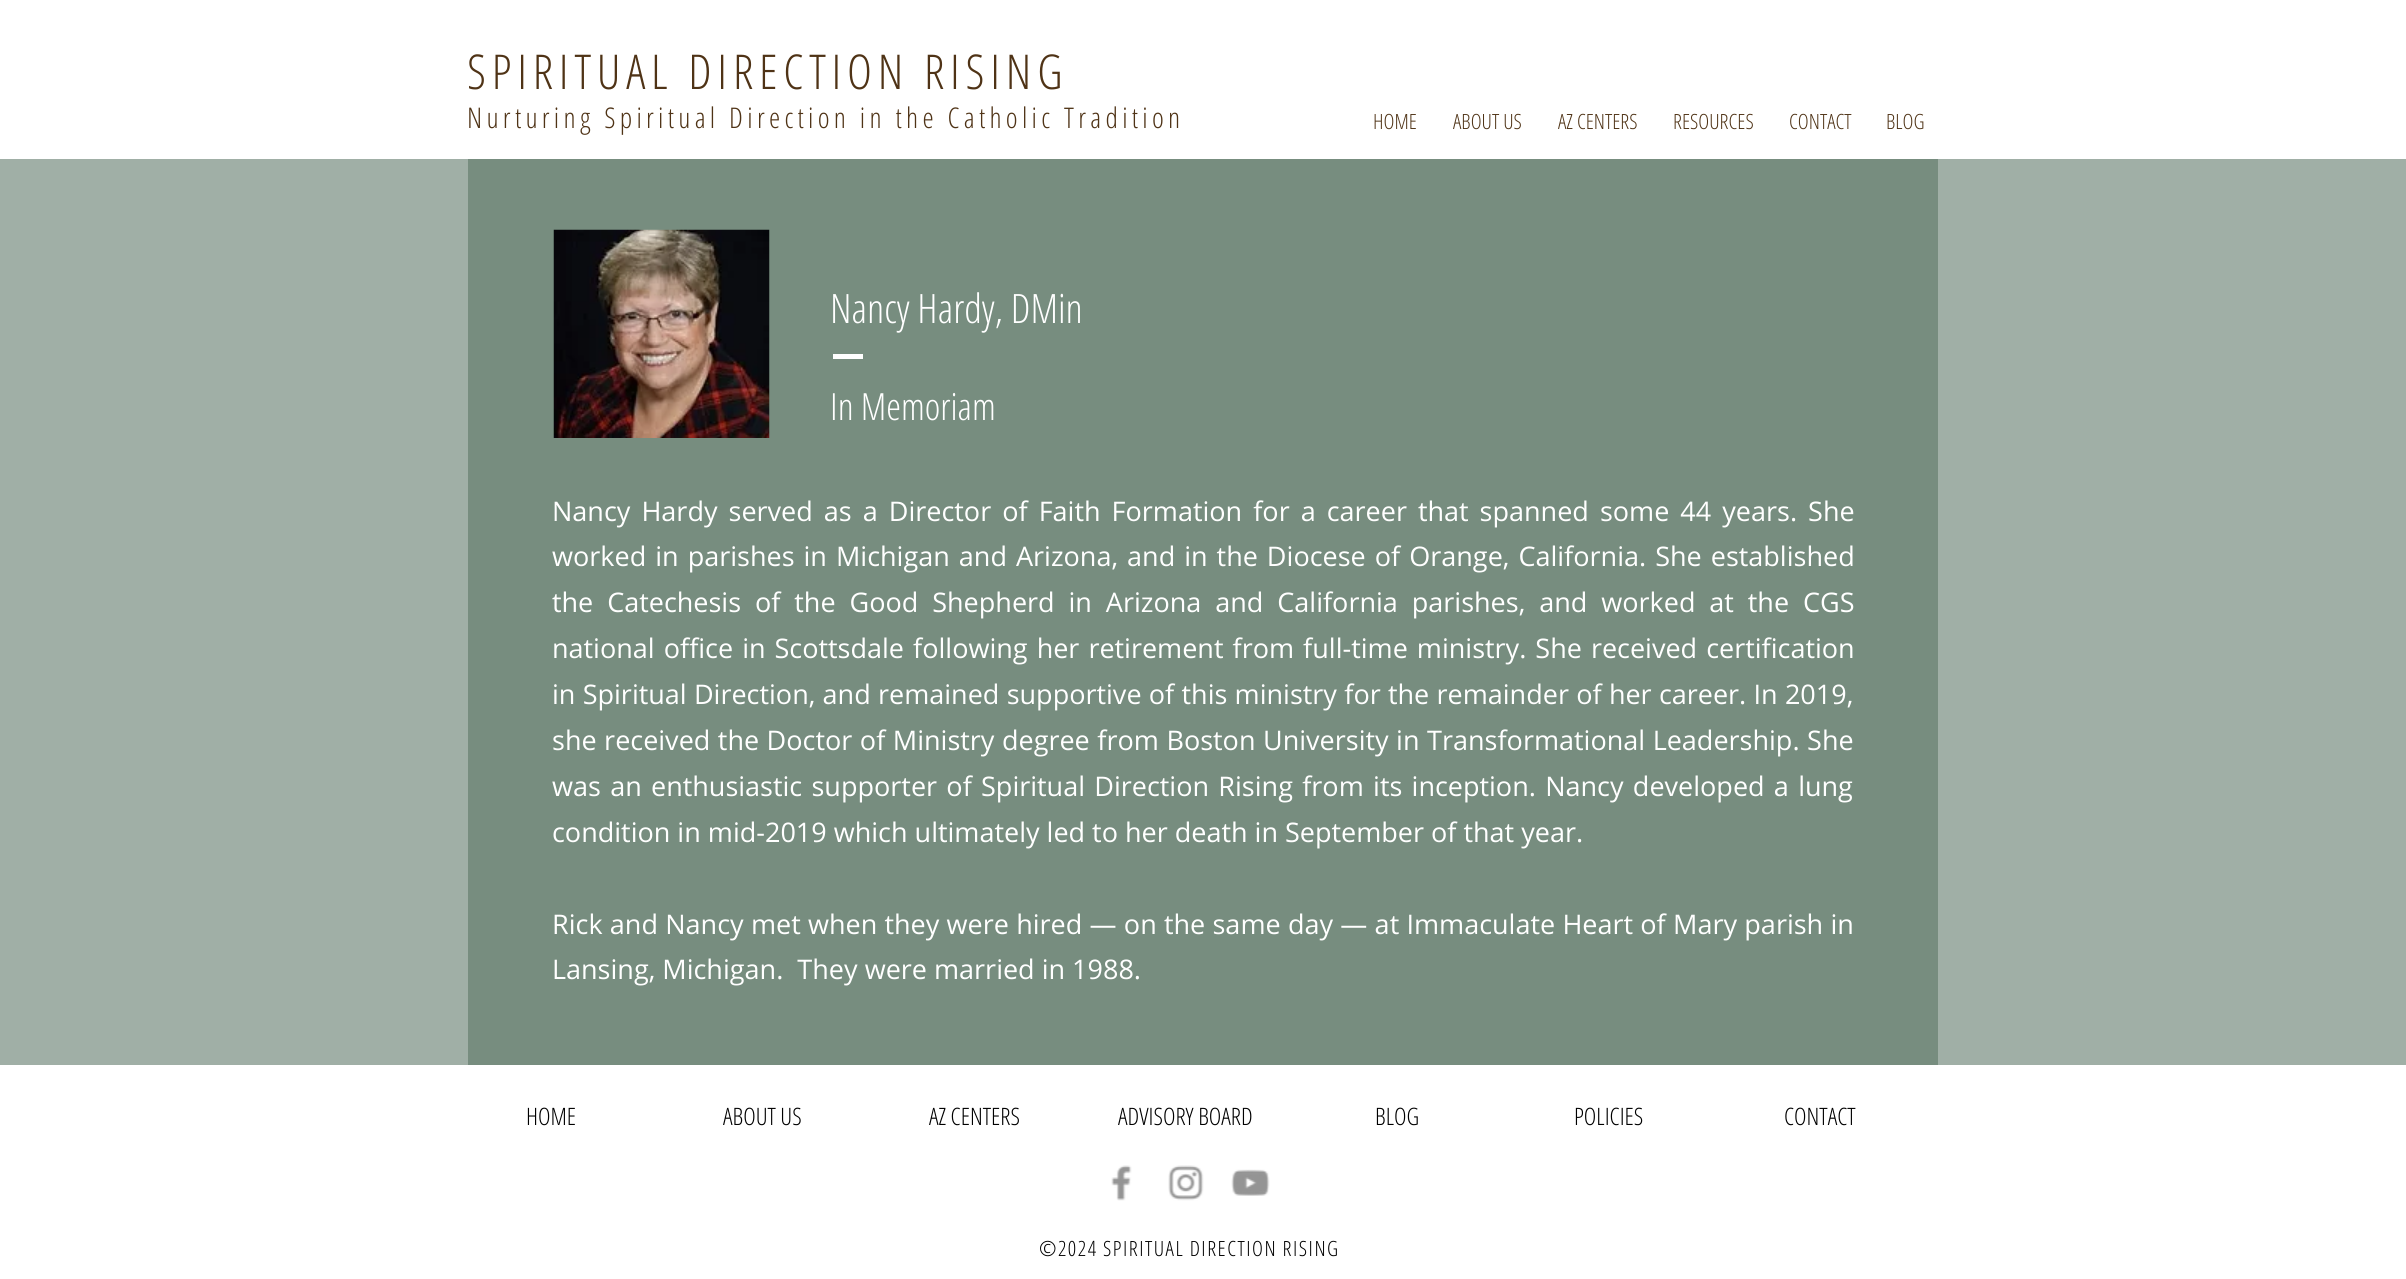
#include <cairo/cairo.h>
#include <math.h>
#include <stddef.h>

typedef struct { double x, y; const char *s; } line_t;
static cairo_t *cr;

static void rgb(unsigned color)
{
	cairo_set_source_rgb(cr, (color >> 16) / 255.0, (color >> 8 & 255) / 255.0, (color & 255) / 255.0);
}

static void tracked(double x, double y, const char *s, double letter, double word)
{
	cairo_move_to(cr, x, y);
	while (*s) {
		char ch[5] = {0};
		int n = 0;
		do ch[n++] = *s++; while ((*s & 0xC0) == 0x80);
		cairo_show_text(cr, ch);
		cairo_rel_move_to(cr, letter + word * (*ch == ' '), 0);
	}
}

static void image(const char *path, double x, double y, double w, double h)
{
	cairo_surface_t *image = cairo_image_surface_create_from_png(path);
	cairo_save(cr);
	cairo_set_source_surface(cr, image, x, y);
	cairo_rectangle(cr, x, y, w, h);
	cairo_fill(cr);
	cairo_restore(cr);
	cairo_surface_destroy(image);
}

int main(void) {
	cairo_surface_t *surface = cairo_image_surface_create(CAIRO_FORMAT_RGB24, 2406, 1279);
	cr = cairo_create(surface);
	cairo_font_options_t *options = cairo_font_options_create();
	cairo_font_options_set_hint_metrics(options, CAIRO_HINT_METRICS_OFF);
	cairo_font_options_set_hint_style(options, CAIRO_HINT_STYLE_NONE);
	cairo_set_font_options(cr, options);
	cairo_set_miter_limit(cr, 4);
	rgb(0xa0afa6);
	cairo_paint(cr);
	rgb(0xffffff);
	cairo_rectangle(cr, 0, 0, 2406, 159);
	cairo_fill(cr);
	rgb(0x778d7f);
	cairo_rectangle(cr, 468, 159, 1470, 906);
	cairo_fill(cr);
	image("img/1.png", 553, 229, 217, 209);
	rgb(0xffffff);
	cairo_rectangle(cr, 833, 354, 30, 5);
	cairo_fill(cr);
	cairo_rectangle(cr, 0, 1065, 2406, 214);
	cairo_fill(cr);
	image("img/2.png", 1111, 1165, 21, 36);
	image("img/3.png", 1168, 1165, 36, 36);
	image("img/4.png", 1231, 1169, 39, 27);
	cairo_select_font_face(cr, "Open Sans Condensed Light", CAIRO_FONT_SLANT_NORMAL, CAIRO_FONT_WEIGHT_NORMAL);
	cairo_set_font_size(cr, 48);
	rgb(0x4f3316);
	tracked(467, 89, "SPIRITUAL DIRECTION RISING", 5.75, 0);
	cairo_set_font_size(cr, 28.5);
	tracked(467, 128, "Nurturing Spiritual Direction in the Catholic Tradition", 4.28, 0);
	cairo_set_font_size(cr, 21);
	{
		static const line_t items[] = {
			{1373, 129, "HOME"},
			{1453, 129, "ABOUT US"},
			{1558, 129, "AZ CENTERS"},
			{1673, 129, "RESOURCES"},
			{1789, 129, "CONTACT"},
			{1886, 129, "BLOG"},
		};
		for (size_t i = 0; i < sizeof items / sizeof *items; i++) {
			cairo_move_to(cr, items[i].x, items[i].y);
			cairo_show_text(cr, items[i].s);
		}
	}
	cairo_set_font_size(cr, 40.5);
	rgb(0xffffff);
	cairo_move_to(cr, 830, 323);
	cairo_show_text(cr, "Nancy Hardy, DMin");
	cairo_set_font_size(cr, 37.5);
	cairo_move_to(cr, 830, 420);
	cairo_show_text(cr, "In Memoriam");
	cairo_select_font_face(cr, "Open Sans", CAIRO_FONT_SLANT_NORMAL, CAIRO_FONT_WEIGHT_NORMAL);
	cairo_set_font_size(cr, 27);
	tracked(552, 521, "Nancy Hardy served as a Director of Faith Formation for a career that spanned some 44 years. She", 0, 4);
	tracked(552, 566, "worked in parishes in Michigan and Arizona, and in the Diocese of Orange, California. She established", 0, 2);
	tracked(552, 612, "the Catechesis of the Good Shepherd in Arizona and California parishes, and worked at the CGS", 0, 6.9);
	tracked(552, 658, "national office in Scottsdale following her retirement from full-time ministry. She received certification", 0, 2);
	tracked(552, 704, "in Spiritual Direction, and remained supportive of this ministry for the remainder of her career. In 2019,", 0, 0.25);
	tracked(552, 750, "she received the Doctor of Ministry degree from Boston University in Transformational Leadership. She", 0, 0.5);
	tracked(552, 796, "was an enthusiastic supporter of Spiritual Direction Rising from its inception. Nancy developed a lung", 0, 2.25);
	cairo_move_to(cr, 552, 842);
	cairo_show_text(cr, "condition in mid-2019 which ultimately led to her death in September of that year.");
	tracked(552, 934, "Rick and Nancy met when they were hired — on the same day — at Immaculate Heart of Mary parish in", 0, 0.25);
	cairo_move_to(cr, 552, 979);
	cairo_show_text(cr, "Lansing, Michigan.  They were married in 1988.");
	cairo_select_font_face(cr, "Open Sans Condensed Light", CAIRO_FONT_SLANT_NORMAL, CAIRO_FONT_WEIGHT_NORMAL);
	cairo_set_font_size(cr, 24);
	rgb(0x000000);
	{
		static const line_t items[] = {
			{526, 1125, "HOME"},
			{723, 1125, "ABOUT US"},
			{929, 1125, "AZ CENTERS"},
			{1118, 1125, "ADVISORY BOARD"},
			{1375, 1125, "BLOG"},
			{1574, 1125, "POLICIES"},
			{1784, 1125, "CONTACT"},
		};
		for (size_t i = 0; i < sizeof items / sizeof *items; i++) {
			cairo_move_to(cr, items[i].x, items[i].y);
			cairo_show_text(cr, items[i].s);
		}
	}
	cairo_set_font_size(cr, 21);
	tracked(1039, 1256, "©2024 SPIRITUAL DIRECTION RISING", 1.5, 0);
	cairo_surface_write_to_png(surface, "page.png");
	cairo_font_options_destroy(options);
	cairo_destroy(cr);
	cairo_surface_destroy(surface);
	return 0;
}
